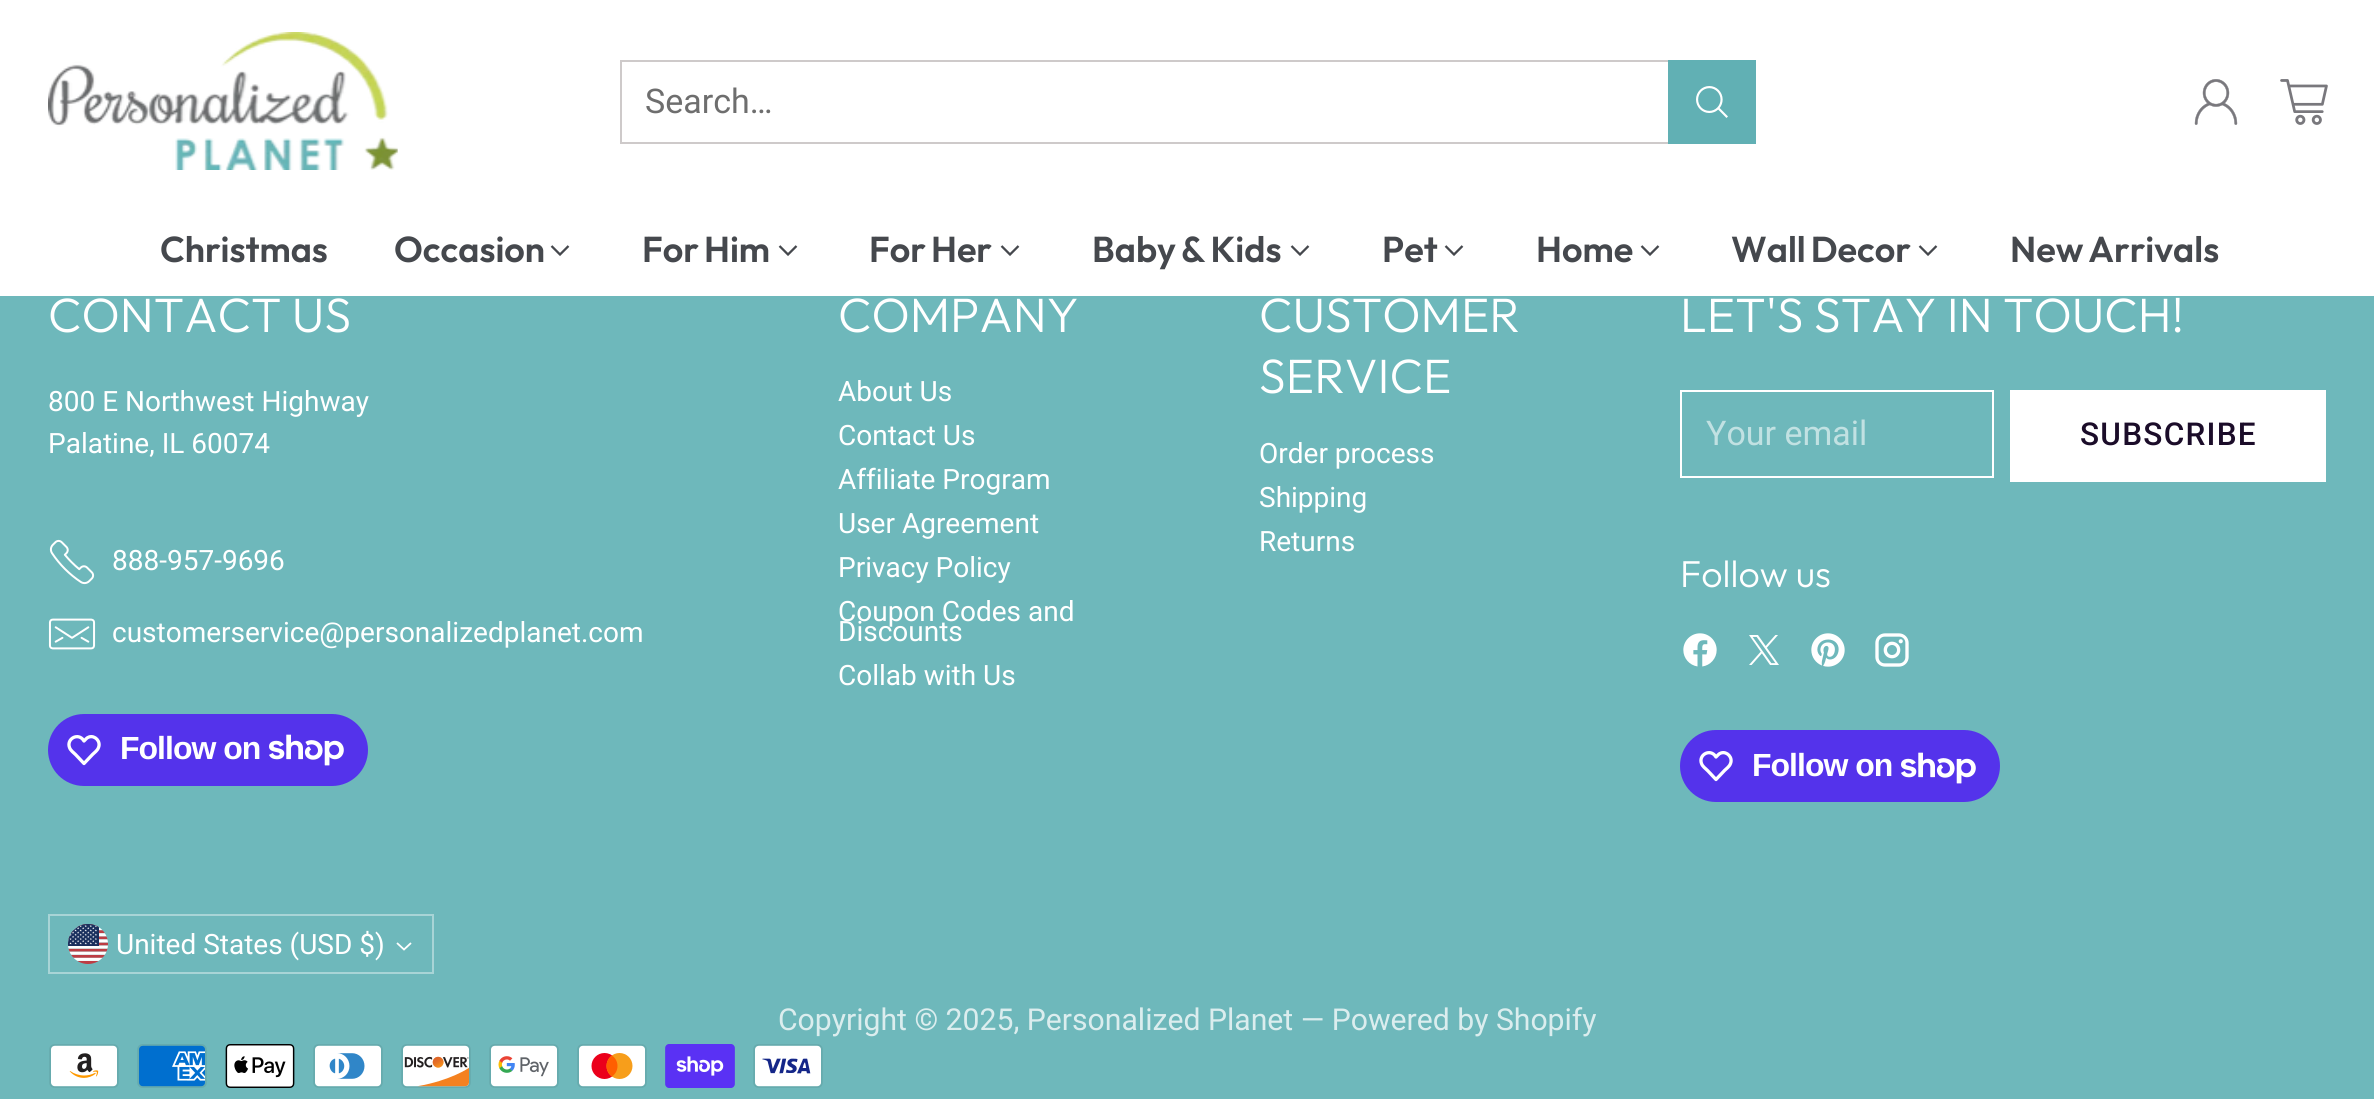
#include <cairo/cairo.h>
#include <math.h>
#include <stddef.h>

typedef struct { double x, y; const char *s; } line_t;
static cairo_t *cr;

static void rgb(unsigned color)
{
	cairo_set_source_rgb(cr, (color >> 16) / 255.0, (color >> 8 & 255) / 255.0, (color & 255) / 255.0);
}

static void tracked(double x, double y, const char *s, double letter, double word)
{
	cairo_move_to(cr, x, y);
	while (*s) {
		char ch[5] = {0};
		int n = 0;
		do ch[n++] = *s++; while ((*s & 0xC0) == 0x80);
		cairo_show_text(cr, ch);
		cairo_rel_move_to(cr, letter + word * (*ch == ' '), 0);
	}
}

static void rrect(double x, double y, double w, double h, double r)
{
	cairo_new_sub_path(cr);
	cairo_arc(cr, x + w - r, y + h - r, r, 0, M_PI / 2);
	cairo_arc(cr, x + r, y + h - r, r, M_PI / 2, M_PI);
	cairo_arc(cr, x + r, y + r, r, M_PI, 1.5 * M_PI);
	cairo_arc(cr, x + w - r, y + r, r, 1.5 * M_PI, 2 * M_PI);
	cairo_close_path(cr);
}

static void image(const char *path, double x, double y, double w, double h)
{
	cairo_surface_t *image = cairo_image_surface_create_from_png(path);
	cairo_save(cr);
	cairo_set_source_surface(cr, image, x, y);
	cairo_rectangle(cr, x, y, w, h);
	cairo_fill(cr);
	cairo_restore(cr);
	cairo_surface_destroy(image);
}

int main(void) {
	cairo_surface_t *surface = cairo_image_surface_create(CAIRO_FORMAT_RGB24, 2374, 1099);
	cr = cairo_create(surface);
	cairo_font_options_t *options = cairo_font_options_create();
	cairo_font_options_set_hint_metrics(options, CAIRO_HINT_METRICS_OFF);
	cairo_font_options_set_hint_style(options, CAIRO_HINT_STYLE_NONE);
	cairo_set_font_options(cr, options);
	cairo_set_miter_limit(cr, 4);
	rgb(0x6eb8bb);
	cairo_paint(cr);
	rgb(0xffffff);
	cairo_rectangle(cr, 0, 0, 2374, 296);
	cairo_fill(cr);
	image("img/1.png", 48, 32, 350, 138);
	cairo_rectangle(cr, 621, 61, 1134, 82);
	rgb(0xcecaca);
	cairo_stroke(cr);
	rgb(0x61b0b4);
	cairo_rectangle(cr, 1668, 60, 88, 84);
	cairo_fill(cr);
	image("img/2.png", 1696, 86, 32, 32);
	image("img/3.png", 2194, 79, 44, 46);
	image("img/4.png", 2280, 79, 48, 46);
	cairo_new_path(cr);
	cairo_move_to(cr, 551.5, 246);
	cairo_line_to(cr, 560, 254.5);
	cairo_line_to(cr, 568.5, 246);
	rgb(0x45484d);
	cairo_set_line_width(cr, 2.3);
	cairo_stroke(cr);
	cairo_new_path(cr);
	cairo_move_to(cr, 779.5, 246);
	cairo_line_to(cr, 788, 254.5);
	cairo_line_to(cr, 796.5, 246);
	cairo_stroke(cr);
	cairo_new_path(cr);
	cairo_move_to(cr, 1001.5, 246);
	cairo_line_to(cr, 1010, 254.5);
	cairo_line_to(cr, 1018.5, 246);
	cairo_stroke(cr);
	cairo_new_path(cr);
	cairo_move_to(cr, 1291.5, 246);
	cairo_line_to(cr, 1300, 254.5);
	cairo_line_to(cr, 1308.5, 246);
	cairo_stroke(cr);
	cairo_new_path(cr);
	cairo_move_to(cr, 1445.5, 246);
	cairo_line_to(cr, 1454, 254.5);
	cairo_line_to(cr, 1462.5, 246);
	cairo_stroke(cr);
	cairo_new_path(cr);
	cairo_move_to(cr, 1641.5, 246);
	cairo_line_to(cr, 1650, 254.5);
	cairo_line_to(cr, 1658.5, 246);
	cairo_stroke(cr);
	cairo_new_path(cr);
	cairo_move_to(cr, 1919.5, 246);
	cairo_line_to(cr, 1928, 254.5);
	cairo_line_to(cr, 1936.5, 246);
	cairo_stroke(cr);
	image("img/5.png", 49, 539, 46, 46);
	image("img/6.png", 48, 618, 48, 32);
	rgb(0x5433eb);
	rrect(48, 714, 320, 72, 36);
	cairo_fill(cr);
	cairo_new_path(cr);
	cairo_move_to(cr, 82.5, 739);
	cairo_line_to(cr, 84, 741);
	cairo_curve_to(cr, 85.5, 739.5, 87, 737.5, 89, 737);
	cairo_curve_to(cr, 95, 735, 101, 741.5, 98.5, 747.5);
	cairo_curve_to(cr, 97.5, 750.5, 94.5, 752.5, 92.5, 754.5);
	cairo_line_to(cr, 84, 763.5);
	cairo_line_to(cr, 75.5, 754.5);
	cairo_curve_to(cr, 73.5, 752.5, 70.5, 750.5, 69.5, 747.5);
	cairo_curve_to(cr, 66.5, 739.5, 76.5, 733, 82.5, 739);
	cairo_close_path(cr);
	rgb(0xffffff);
	cairo_set_line_width(cr, 3.3);
	cairo_set_line_join(cr, CAIRO_LINE_JOIN_ROUND);
	cairo_stroke(cr);
	image("img/7.png", 269, 734, 75, 32);
	cairo_rectangle(cr, 1681, 391, 312, 86);
	cairo_set_line_width(cr, 2);
	cairo_set_line_join(cr, CAIRO_LINE_JOIN_MITER);
	cairo_stroke(cr);
	cairo_rectangle(cr, 2010, 390, 316, 92);
	cairo_fill(cr);
	image("img/8.png", 1683, 633, 34, 34);
	image("img/9.png", 1749, 635, 30, 30);
	image("img/10.png", 1811, 633, 34, 34);
	image("img/11.png", 1875, 633, 34, 34);
	rgb(0x5433eb);
	rrect(1680, 730, 320, 72, 36);
	cairo_fill(cr);
	cairo_new_path(cr);
	cairo_move_to(cr, 1714.5, 755);
	cairo_line_to(cr, 1716, 757);
	cairo_curve_to(cr, 1717.5, 755.5, 1719, 753.5, 1721, 753);
	cairo_curve_to(cr, 1727, 751, 1733, 757.5, 1730.5, 763.5);
	cairo_curve_to(cr, 1729.5, 766.5, 1726.5, 768.5, 1724.5, 770.5);
	cairo_line_to(cr, 1716, 779.5);
	cairo_line_to(cr, 1707.5, 770.5);
	cairo_curve_to(cr, 1705.5, 768.5, 1702.5, 766.5, 1701.5, 763.5);
	cairo_curve_to(cr, 1698.5, 755.5, 1708.5, 749, 1714.5, 755);
	cairo_close_path(cr);
	rgb(0xffffff);
	cairo_set_line_width(cr, 3.3);
	cairo_set_line_join(cr, CAIRO_LINE_JOIN_ROUND);
	cairo_stroke(cr);
	image("img/7.png", 1901, 752, 75, 32);
	cairo_rectangle(cr, 49, 915, 384, 58);
	rgb(0xa8d4d6);
	cairo_set_line_width(cr, 2);
	cairo_set_line_join(cr, CAIRO_LINE_JOIN_MITER);
	cairo_stroke(cr);
	image("img/12.png", 68, 924, 40, 40);
	cairo_new_path(cr);
	cairo_move_to(cr, 397, 943);
	cairo_line_to(cr, 404, 949.5);
	cairo_line_to(cr, 411, 943);
	rgb(0xffffff);
	cairo_set_line_width(cr, 1.8);
	cairo_stroke(cr);
	image("img/13.png", 49, 1044, 70, 44);
	image("img/14.png", 137, 1044, 70, 44);
	image("img/15.png", 225, 1044, 70, 44);
	image("img/16.png", 313, 1044, 70, 44);
	image("img/17.png", 401, 1044, 70, 44);
	image("img/18.png", 489, 1044, 70, 44);
	image("img/19.png", 577, 1044, 70, 44);
	image("img/20.png", 665, 1044, 70, 44);
	image("img/21.png", 753, 1044, 70, 44);
	cairo_select_font_face(cr, "Roboto", CAIRO_FONT_SLANT_NORMAL, CAIRO_FONT_WEIGHT_NORMAL);
	cairo_set_font_size(cr, 34);
	rgb(0x6e6e6e);
	cairo_move_to(cr, 645, 113);
	cairo_show_text(cr, "Search…");
	cairo_select_font_face(cr, "Outfit SemiBold", CAIRO_FONT_SLANT_NORMAL, CAIRO_FONT_WEIGHT_NORMAL);
	cairo_set_font_size(cr, 36);
	rgb(0x45484d);
	cairo_move_to(cr, 160, 262);
	cairo_show_text(cr, "Christmas");
	cairo_move_to(cr, 394, 262);
	cairo_show_text(cr, "Occasion");
	{
		static const line_t items[] = {
			{642, 262, "For Him"},
			{869, 262, "For Her"},
			{1092, 262, "Baby & Kids"},
		};
		for (size_t i = 0; i < sizeof items / sizeof *items; i++) {
			tracked(items[i].x, items[i].y, items[i].s, 0, -2);
		}
	}
	cairo_move_to(cr, 1382, 262);
	cairo_show_text(cr, "Pet");
	cairo_move_to(cr, 1536, 262);
	cairo_show_text(cr, "Home");
	tracked(1731, 262, "Wall Decor", 0, -2);
	tracked(2010, 262, "New Arrivals", 0, -2);
	cairo_select_font_face(cr, "Outfit Light", CAIRO_FONT_SLANT_NORMAL, CAIRO_FONT_WEIGHT_NORMAL);
	cairo_set_font_size(cr, 48.25);
	rgb(0xffffff);
	cairo_move_to(cr, 48, 332);
	cairo_show_text(cr, "CONTACT US");
	cairo_select_font_face(cr, "Roboto", CAIRO_FONT_SLANT_NORMAL, CAIRO_FONT_WEIGHT_NORMAL);
	cairo_set_font_size(cr, 28);
	{
		static const line_t items[] = {
			{48, 411, "800 E Northwest Highway"},
			{48, 453, "Palatine, IL 60074"},
			{112, 570, "888-957-9696"},
			{112, 642, "customerservice@personalizedplanet.com"},
		};
		for (size_t i = 0; i < sizeof items / sizeof *items; i++) {
			cairo_move_to(cr, items[i].x, items[i].y);
			cairo_show_text(cr, items[i].s);
		}
	}
	cairo_select_font_face(cr, "Liberation Sans", CAIRO_FONT_SLANT_NORMAL, CAIRO_FONT_WEIGHT_BOLD);
	cairo_set_font_size(cr, 32);
	tracked(120, 759, "Follow on", -1, 0);
	cairo_select_font_face(cr, "Outfit Light", CAIRO_FONT_SLANT_NORMAL, CAIRO_FONT_WEIGHT_NORMAL);
	cairo_set_font_size(cr, 48.25);
	cairo_move_to(cr, 838, 332);
	cairo_show_text(cr, "COMPANY");
	cairo_select_font_face(cr, "Roboto", CAIRO_FONT_SLANT_NORMAL, CAIRO_FONT_WEIGHT_NORMAL);
	cairo_set_font_size(cr, 28);
	{
		static const line_t items[] = {
			{838, 401, "About Us"},
			{838, 445, "Contact Us"},
			{838, 489, "Affiliate Program"},
			{838, 533, "User Agreement"},
			{838, 577, "Privacy Policy"},
			{838, 621, "Coupon Codes and"},
			{838, 641, "Discounts"},
			{838, 685, "Collab with Us"},
		};
		for (size_t i = 0; i < sizeof items / sizeof *items; i++) {
			cairo_move_to(cr, items[i].x, items[i].y);
			cairo_show_text(cr, items[i].s);
		}
	}
	cairo_select_font_face(cr, "Outfit Light", CAIRO_FONT_SLANT_NORMAL, CAIRO_FONT_WEIGHT_NORMAL);
	cairo_set_font_size(cr, 48.25);
	cairo_move_to(cr, 1259, 332);
	cairo_show_text(cr, "CUSTOMER");
	cairo_move_to(cr, 1259, 393);
	cairo_show_text(cr, "SERVICE");
	cairo_select_font_face(cr, "Roboto", CAIRO_FONT_SLANT_NORMAL, CAIRO_FONT_WEIGHT_NORMAL);
	cairo_set_font_size(cr, 28);
	{
		static const line_t items[] = {
			{1259, 463, "Order process"},
			{1259, 507, "Shipping"},
			{1259, 551, "Returns"},
		};
		for (size_t i = 0; i < sizeof items / sizeof *items; i++) {
			cairo_move_to(cr, items[i].x, items[i].y);
			cairo_show_text(cr, items[i].s);
		}
	}
	cairo_select_font_face(cr, "Outfit Light", CAIRO_FONT_SLANT_NORMAL, CAIRO_FONT_WEIGHT_NORMAL);
	cairo_set_font_size(cr, 48.25);
	cairo_move_to(cr, 1680, 332);
	cairo_show_text(cr, "LET'S STAY IN TOUCH!");
	cairo_select_font_face(cr, "Roboto", CAIRO_FONT_SLANT_NORMAL, CAIRO_FONT_WEIGHT_NORMAL);
	cairo_set_font_size(cr, 34);
	rgb(0xc1e1e2);
	cairo_move_to(cr, 1706, 445);
	cairo_show_text(cr, "Your email");
	cairo_select_font_face(cr, "Roboto Medium", CAIRO_FONT_SLANT_NORMAL, CAIRO_FONT_WEIGHT_NORMAL);
	cairo_set_font_size(cr, 31.5);
	rgb(0x1b0c29);
	tracked(2080, 445, "SUBSCRIBE", 1.25, 0);
	cairo_select_font_face(cr, "Outfit Light", CAIRO_FONT_SLANT_NORMAL, CAIRO_FONT_WEIGHT_NORMAL);
	cairo_set_font_size(cr, 37.5);
	rgb(0xffffff);
	cairo_move_to(cr, 1680, 587);
	cairo_show_text(cr, "Follow us");
	cairo_select_font_face(cr, "Liberation Sans", CAIRO_FONT_SLANT_NORMAL, CAIRO_FONT_WEIGHT_BOLD);
	cairo_set_font_size(cr, 32);
	tracked(1752, 776, "Follow on", -1, 0);
	cairo_select_font_face(cr, "Roboto", CAIRO_FONT_SLANT_NORMAL, CAIRO_FONT_WEIGHT_NORMAL);
	cairo_set_font_size(cr, 28);
	cairo_move_to(cr, 116, 954);
	cairo_show_text(cr, "United States (USD $)");
	cairo_set_font_size(cr, 30.15);
	rgb(0xdbedee);
	cairo_move_to(cr, 778, 1030);
	cairo_show_text(cr, "Copyright © 2025, Personalized Planet — Powered by Shopify");
	cairo_surface_write_to_png(surface, "page.png");
	cairo_font_options_destroy(options);
	cairo_destroy(cr);
	cairo_surface_destroy(surface);
	return 0;
}
